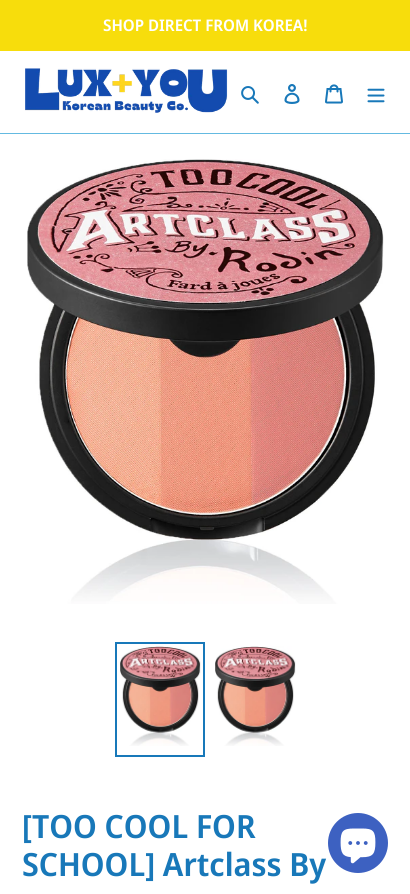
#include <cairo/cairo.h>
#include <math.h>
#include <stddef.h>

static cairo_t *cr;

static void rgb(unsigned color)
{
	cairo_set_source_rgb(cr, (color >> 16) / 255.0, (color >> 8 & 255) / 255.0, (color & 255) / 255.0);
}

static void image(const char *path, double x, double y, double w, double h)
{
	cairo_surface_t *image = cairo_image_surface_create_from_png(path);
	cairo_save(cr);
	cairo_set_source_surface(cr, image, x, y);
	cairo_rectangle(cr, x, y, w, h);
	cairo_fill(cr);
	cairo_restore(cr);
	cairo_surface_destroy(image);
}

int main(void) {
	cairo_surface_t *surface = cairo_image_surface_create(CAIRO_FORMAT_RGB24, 410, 894);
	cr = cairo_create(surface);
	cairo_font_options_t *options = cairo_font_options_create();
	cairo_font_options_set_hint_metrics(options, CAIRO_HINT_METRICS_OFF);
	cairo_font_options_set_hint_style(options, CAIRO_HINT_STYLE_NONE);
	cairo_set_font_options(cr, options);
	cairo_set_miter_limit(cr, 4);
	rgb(0xffffff);
	cairo_paint(cr);
	rgb(0xf7dd0c);
	cairo_rectangle(cr, 0, 0, 410, 51);
	cairo_fill(cr);
	rgb(0x64bae1);
	cairo_rectangle(cr, 0, 133, 410, 1);
	cairo_fill(cr);
	image("img/1.png", 25, 68, 203, 45);
	image("img/2.png", 241, 86, 18, 18);
	image("img/3.png", 284, 84, 16, 20);
	image("img/4.png", 325, 84, 18, 20);
	image("img/5.png", 367, 88, 18, 15);
	image("img/6.png", 27, 159, 357, 445);
	cairo_rectangle(cr, 116, 643, 88, 113);
	rgb(0x1878b9);
	cairo_stroke(cr);
	image("img/7.png", 120, 646, 81, 100);
	image("img/8.png", 215, 646, 81, 100);
	rgb(0x3d61c1);
	cairo_arc(cr, 358, 843, 30, 0, 2 * M_PI);
	cairo_fill(cr);
	image("img/9.png", 340, 828, 36, 36);
	cairo_select_font_face(cr, "Noto Sans Display SemiBold", CAIRO_FONT_SLANT_NORMAL, CAIRO_FONT_WEIGHT_NORMAL);
	cairo_set_font_size(cr, 16);
	rgb(0xffffff);
	cairo_move_to(cr, 103, 31);
	cairo_show_text(cr, "SHOP DIRECT FROM KOREA!");
	cairo_set_font_size(cr, 32);
	rgb(0x1878b9);
	cairo_move_to(cr, 22, 838);
	cairo_show_text(cr, "[TOO COOL FOR");
	cairo_move_to(cr, 22, 876);
	cairo_show_text(cr, "SCHOOL] Artclass By");
	cairo_surface_write_to_png(surface, "page.png");
	cairo_font_options_destroy(options);
	cairo_destroy(cr);
	cairo_surface_destroy(surface);
	return 0;
}
